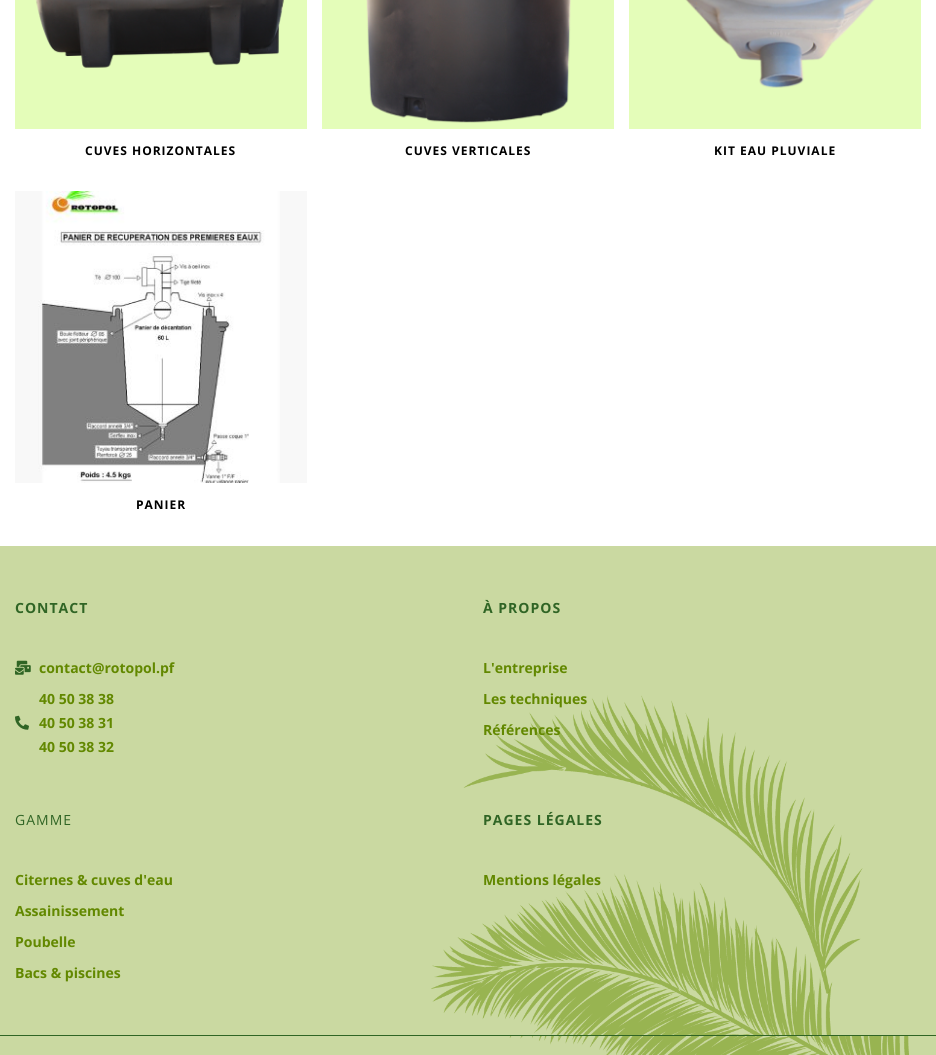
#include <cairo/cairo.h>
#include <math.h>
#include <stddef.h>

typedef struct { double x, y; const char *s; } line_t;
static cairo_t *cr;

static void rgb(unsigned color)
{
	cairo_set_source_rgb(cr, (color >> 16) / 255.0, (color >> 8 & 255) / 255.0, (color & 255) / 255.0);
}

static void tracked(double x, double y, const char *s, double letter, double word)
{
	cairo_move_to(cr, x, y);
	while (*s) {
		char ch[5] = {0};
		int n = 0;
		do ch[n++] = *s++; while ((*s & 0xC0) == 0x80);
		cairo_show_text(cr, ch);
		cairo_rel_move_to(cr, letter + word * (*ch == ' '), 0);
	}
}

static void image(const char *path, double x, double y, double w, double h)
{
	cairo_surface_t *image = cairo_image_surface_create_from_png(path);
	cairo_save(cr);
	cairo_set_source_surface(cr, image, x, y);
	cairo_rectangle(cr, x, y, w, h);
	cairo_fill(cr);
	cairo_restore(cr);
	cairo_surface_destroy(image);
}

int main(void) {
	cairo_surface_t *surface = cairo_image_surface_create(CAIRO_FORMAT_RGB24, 936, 1055);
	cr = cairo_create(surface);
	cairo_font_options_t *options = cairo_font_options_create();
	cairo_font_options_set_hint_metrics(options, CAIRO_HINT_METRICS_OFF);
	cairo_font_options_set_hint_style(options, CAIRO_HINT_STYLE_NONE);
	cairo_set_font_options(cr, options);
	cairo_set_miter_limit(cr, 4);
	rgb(0xffffff);
	cairo_paint(cr);
	rgb(0xe4fdb9);
	cairo_rectangle(cr, 15, 0, 292, 129);
	cairo_fill(cr);
	image("img/1.png", 35, 0, 249, 68);
	cairo_rectangle(cr, 322, 0, 292, 129);
	cairo_fill(cr);
	image("img/2.png", 366, 0, 205, 123);
	cairo_rectangle(cr, 629, 0, 292, 129);
	cairo_fill(cr);
	image("img/3.png", 685, 0, 190, 88);
	image("img/4.png", 15, 191, 292, 292);
	rgb(0xcad9a1);
	cairo_rectangle(cr, 0, 546, 936, 489);
	cairo_fill(cr);
	image("img/5.png", 431, 695, 432, 340);
	rgb(0x306525);
	cairo_rectangle(cr, 0, 1035, 936, 1);
	cairo_fill(cr);
	image("img/6.png", 15, 660, 16, 15);
	image("img/7.png", 15, 715, 14, 15);
	rgb(0xcad9a1);
	cairo_rectangle(cr, 0, 1036, 936, 19);
	cairo_fill(cr);
	image("img/8.png", 509, 1036, 400, 19);
	cairo_select_font_face(cr, "Open Sans", CAIRO_FONT_SLANT_NORMAL, CAIRO_FONT_WEIGHT_BOLD);
	cairo_set_font_size(cr, 12);
	rgb(0x000000);
	{
		static const line_t items[] = {
			{85, 155, "CUVES HORIZONTALES"},
			{405, 155, "CUVES VERTICALES"},
			{714, 155, "KIT EAU PLUVIALE"},
			{136, 509, "PANIER"},
		};
		for (size_t i = 0; i < sizeof items / sizeof *items; i++) {
			tracked(items[i].x, items[i].y, items[i].s, 1, 0);
		}
	}
	cairo_set_font_size(cr, 14);
	rgb(0x306525);
	tracked(15, 613, "CONTACT", 1, 0);
	rgb(0x628800);
	{
		static const line_t items[] = {
			{39, 673, "contact@rotopol.pf"},
			{39, 704, "40 50 38 38"},
			{39, 728, "40 50 38 31"},
			{39, 752, "40 50 38 32"},
		};
		for (size_t i = 0; i < sizeof items / sizeof *items; i++) {
			cairo_move_to(cr, items[i].x, items[i].y);
			cairo_show_text(cr, items[i].s);
		}
	}
	rgb(0x306525);
	tracked(483, 613, "À PROPOS", 1, 0);
	rgb(0x628800);
	{
		static const line_t items[] = {
			{483, 673, "L'entreprise"},
			{483, 704, "Les techniques"},
			{483, 735, "Références"},
		};
		for (size_t i = 0; i < sizeof items / sizeof *items; i++) {
			cairo_move_to(cr, items[i].x, items[i].y);
			cairo_show_text(cr, items[i].s);
		}
	}
	cairo_select_font_face(cr, "Open Sans", CAIRO_FONT_SLANT_NORMAL, CAIRO_FONT_WEIGHT_NORMAL);
	rgb(0x306525);
	tracked(15, 825, "GAMME", 1, 0);
	cairo_select_font_face(cr, "Open Sans", CAIRO_FONT_SLANT_NORMAL, CAIRO_FONT_WEIGHT_BOLD);
	rgb(0x628800);
	{
		static const line_t items[] = {
			{15, 885, "Citernes & cuves d'eau"},
			{15, 916, "Assainissement"},
			{15, 947, "Poubelle"},
			{15, 978, "Bacs & piscines"},
		};
		for (size_t i = 0; i < sizeof items / sizeof *items; i++) {
			cairo_move_to(cr, items[i].x, items[i].y);
			cairo_show_text(cr, items[i].s);
		}
	}
	rgb(0x306525);
	tracked(483, 825, "PAGES LÉGALES", 1, 0);
	rgb(0x628800);
	cairo_move_to(cr, 483, 885);
	cairo_show_text(cr, "Mentions légales");
	cairo_surface_write_to_png(surface, "page.png");
	cairo_font_options_destroy(options);
	cairo_destroy(cr);
	cairo_surface_destroy(surface);
	return 0;
}
